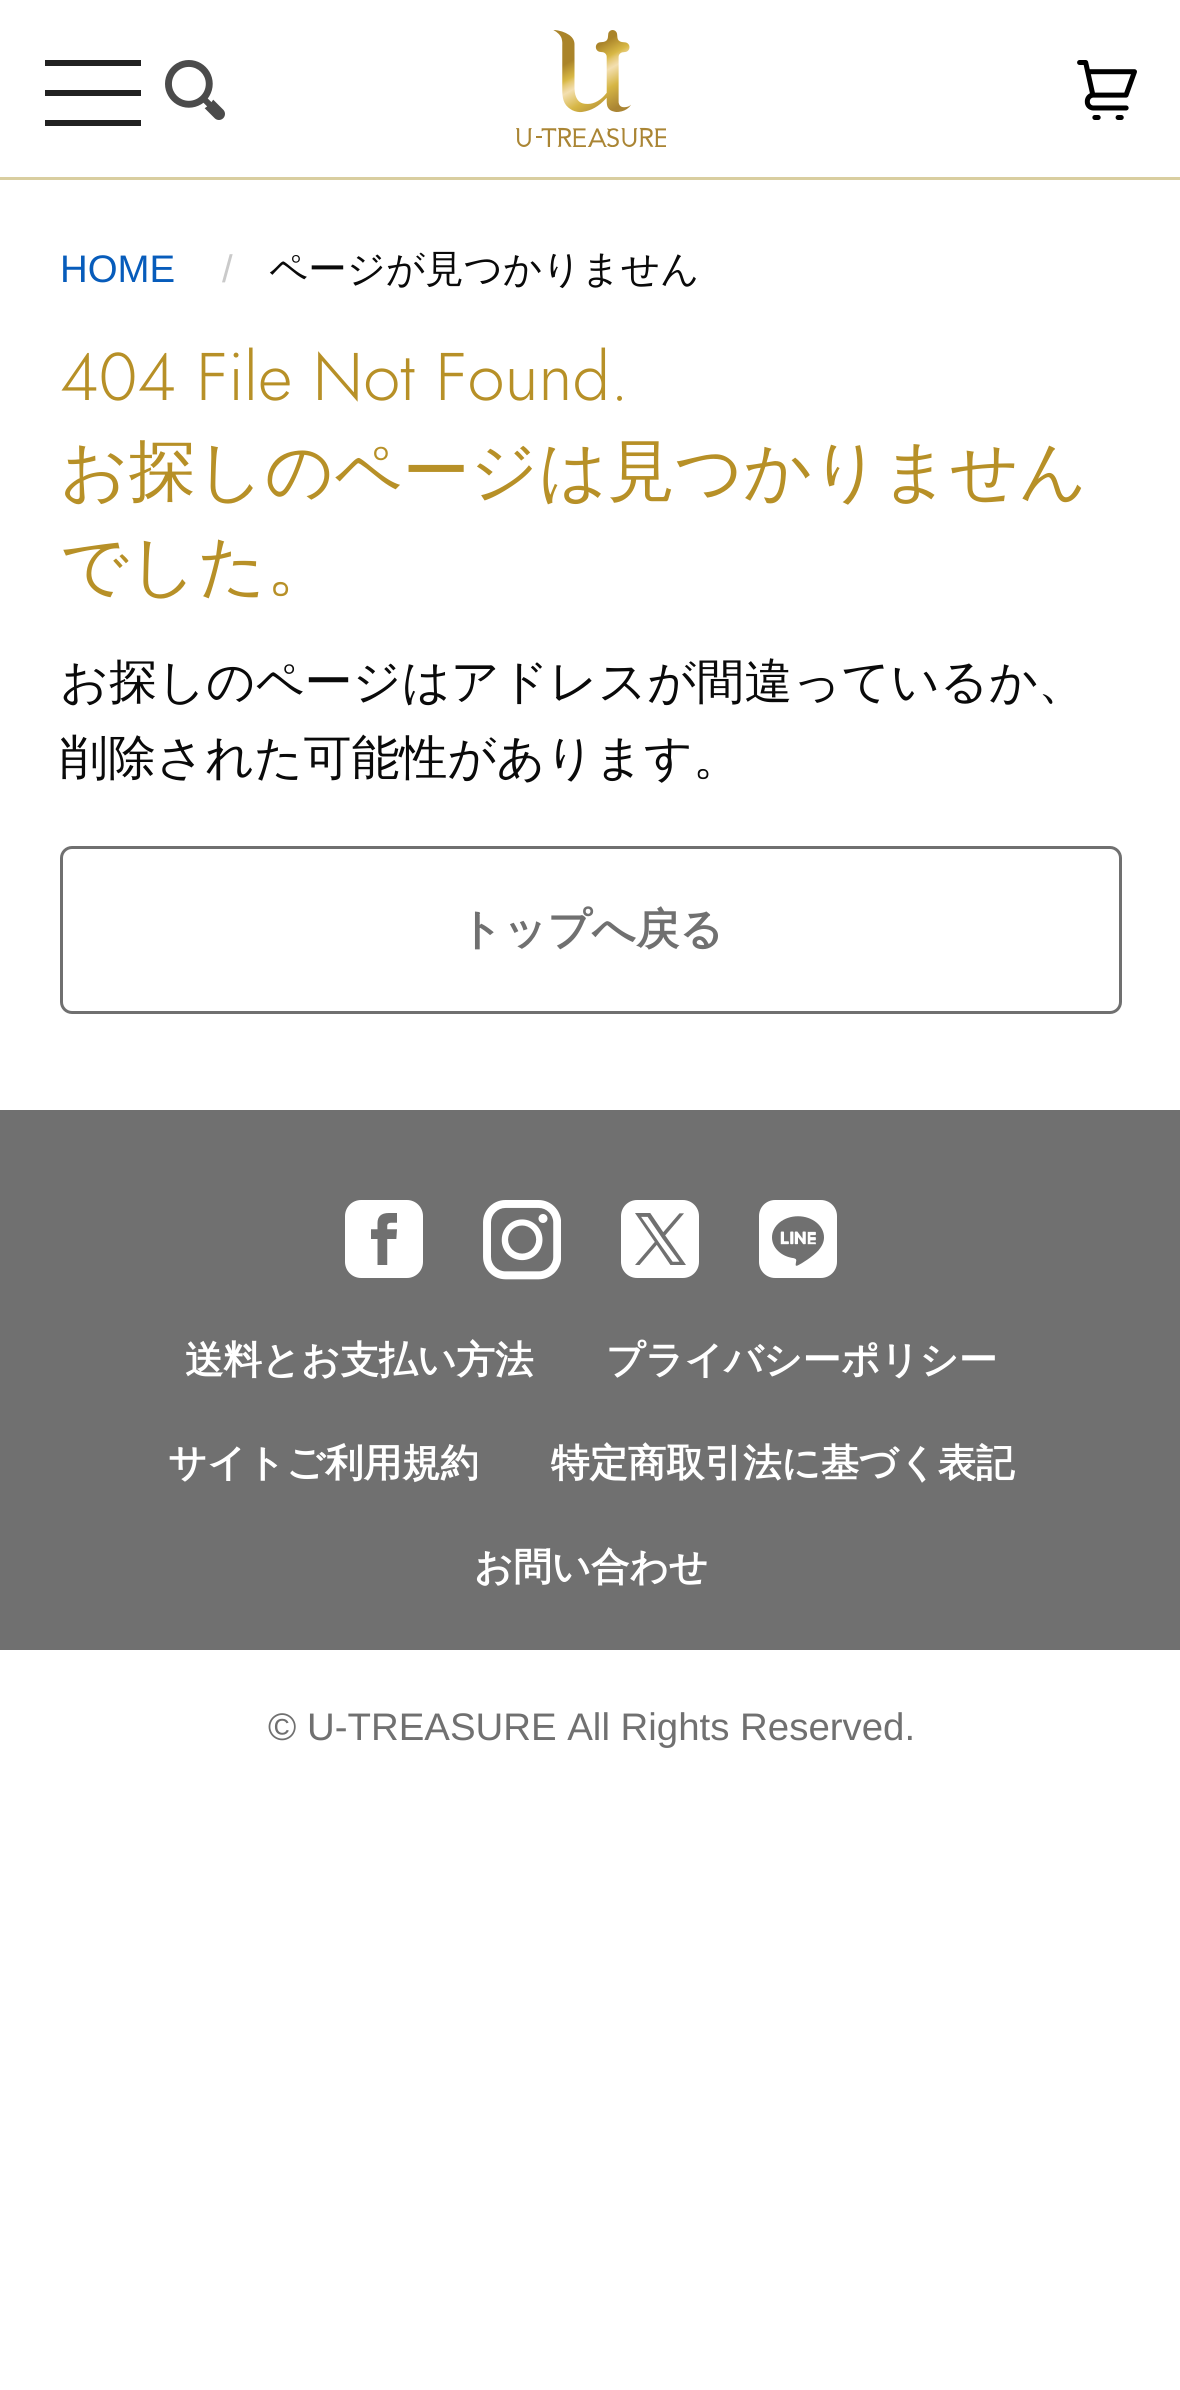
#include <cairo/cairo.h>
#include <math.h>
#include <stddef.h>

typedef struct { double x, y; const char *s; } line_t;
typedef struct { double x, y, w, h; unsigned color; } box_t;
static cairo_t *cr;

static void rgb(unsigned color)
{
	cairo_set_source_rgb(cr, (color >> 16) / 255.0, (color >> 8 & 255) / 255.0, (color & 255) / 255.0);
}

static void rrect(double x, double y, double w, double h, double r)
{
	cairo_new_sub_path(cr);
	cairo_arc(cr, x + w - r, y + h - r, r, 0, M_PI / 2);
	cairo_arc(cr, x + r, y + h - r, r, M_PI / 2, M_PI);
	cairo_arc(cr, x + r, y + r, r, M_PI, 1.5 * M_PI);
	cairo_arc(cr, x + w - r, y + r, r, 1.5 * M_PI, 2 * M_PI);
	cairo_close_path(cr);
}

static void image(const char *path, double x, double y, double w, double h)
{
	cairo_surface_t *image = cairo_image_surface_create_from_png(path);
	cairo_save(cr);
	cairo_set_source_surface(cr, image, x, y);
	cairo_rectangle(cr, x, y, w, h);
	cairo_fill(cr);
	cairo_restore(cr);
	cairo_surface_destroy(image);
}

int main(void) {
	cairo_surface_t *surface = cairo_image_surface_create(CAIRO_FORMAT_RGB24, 1180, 2390);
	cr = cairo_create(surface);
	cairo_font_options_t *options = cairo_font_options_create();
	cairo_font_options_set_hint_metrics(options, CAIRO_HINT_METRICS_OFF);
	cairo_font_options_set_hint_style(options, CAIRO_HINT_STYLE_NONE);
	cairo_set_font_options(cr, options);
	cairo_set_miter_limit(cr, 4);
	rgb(0xffffff);
	cairo_paint(cr);
	{
		static const box_t items[] = {
			{0, 177, 1180, 3, 0xd9cea0},
			{45, 90, 96, 6, 0x222222},
			{45, 60, 96, 6, 0x222222},
			{45, 120, 96, 6, 0x222222},
		};
		for (size_t i = 0; i < sizeof items / sizeof *items; i++) {
			rgb(items[i].color);
			cairo_rectangle(cr, items[i].x, items[i].y, items[i].w, items[i].h);
			cairo_fill(cr);
		}
	}
	image("img/1.png", 165, 60, 60, 60);
	image("img/2.png", 516, 30, 150, 117);
	image("img/3.png", 1077, 60, 60, 60);
	rrect(61.5, 847.5, 1059, 165, 10.5);
	rgb(0x707070);
	cairo_set_line_width(cr, 3);
	cairo_stroke(cr);
	cairo_rectangle(cr, 0, 1110, 1180, 540);
	cairo_fill(cr);
	image("img/4.png", 345, 1200, 78, 78);
	image("img/5.png", 483, 1200, 78, 80);
	image("img/6.png", 621, 1200, 78, 78);
	image("img/7.png", 759, 1200, 78, 78);
	cairo_select_font_face(cr, "Liberation Sans", CAIRO_FONT_SLANT_NORMAL, CAIRO_FONT_WEIGHT_NORMAL);
	cairo_set_font_size(cr, 38.4);
	rgb(0x075cbb);
	cairo_move_to(cr, 60, 282);
	cairo_show_text(cr, "HOME");
	rgb(0xcacaca);
	cairo_move_to(cr, 222, 282);
	cairo_show_text(cr, "/");
	cairo_select_font_face(cr, "WenQuanYi Zen Hei Medium", CAIRO_FONT_SLANT_NORMAL, CAIRO_FONT_WEIGHT_NORMAL);
	rgb(0x0a0a0a);
	cairo_move_to(cr, 269, 282);
	cairo_show_text(cr, "ページが見つかりません");
	cairo_select_font_face(cr, "Jost Light", CAIRO_FONT_SLANT_NORMAL, CAIRO_FONT_WEIGHT_NORMAL);
	cairo_set_font_size(cr, 67.25);
	rgb(0xb79027);
	cairo_move_to(cr, 60, 400);
	cairo_show_text(cr, "404 File Not Found.");
	cairo_select_font_face(cr, "WenQuanYi Zen Hei Medium", CAIRO_FONT_SLANT_NORMAL, CAIRO_FONT_WEIGHT_NORMAL);
	cairo_move_to(cr, 60, 494);
	cairo_show_text(cr, "お探しのページは見つかりません");
	cairo_move_to(cr, 60, 589);
	cairo_show_text(cr, "でした。");
	cairo_set_font_size(cr, 48);
	rgb(0x0a0a0a);
	cairo_move_to(cr, 60, 698);
	cairo_show_text(cr, "お探しのページはアドレスが間違っているか、");
	cairo_move_to(cr, 60, 774);
	cairo_show_text(cr, "削除された可能性があります。");
	cairo_select_font_face(cr, "WenQuanYi Zen Hei", CAIRO_FONT_SLANT_NORMAL, CAIRO_FONT_WEIGHT_BOLD);
	cairo_set_font_size(cr, 43.25);
	rgb(0x707070);
	cairo_move_to(cr, 459, 944);
	cairo_show_text(cr, "トップへ戻る");
	cairo_set_font_size(cr, 38.4);
	rgb(0xffffff);
	{
		static const line_t items[] = {
			{185, 1373, "送料とお支払い方法"},
			{606, 1373, "プライバシーポリシー"},
			{168, 1476, "サイトご利用規約"},
			{551, 1476, "特定商取引法に基づく表記"},
			{474, 1580, "お問い合わせ"},
		};
		for (size_t i = 0; i < sizeof items / sizeof *items; i++) {
			cairo_move_to(cr, items[i].x, items[i].y);
			cairo_show_text(cr, items[i].s);
		}
	}
	cairo_select_font_face(cr, "Liberation Sans", CAIRO_FONT_SLANT_NORMAL, CAIRO_FONT_WEIGHT_NORMAL);
	rgb(0x707070);
	cairo_move_to(cr, 268, 1740);
	cairo_show_text(cr, "© U-TREASURE All Rights Reserved.");
	cairo_surface_write_to_png(surface, "page.png");
	cairo_font_options_destroy(options);
	cairo_destroy(cr);
	cairo_surface_destroy(surface);
	return 0;
}
